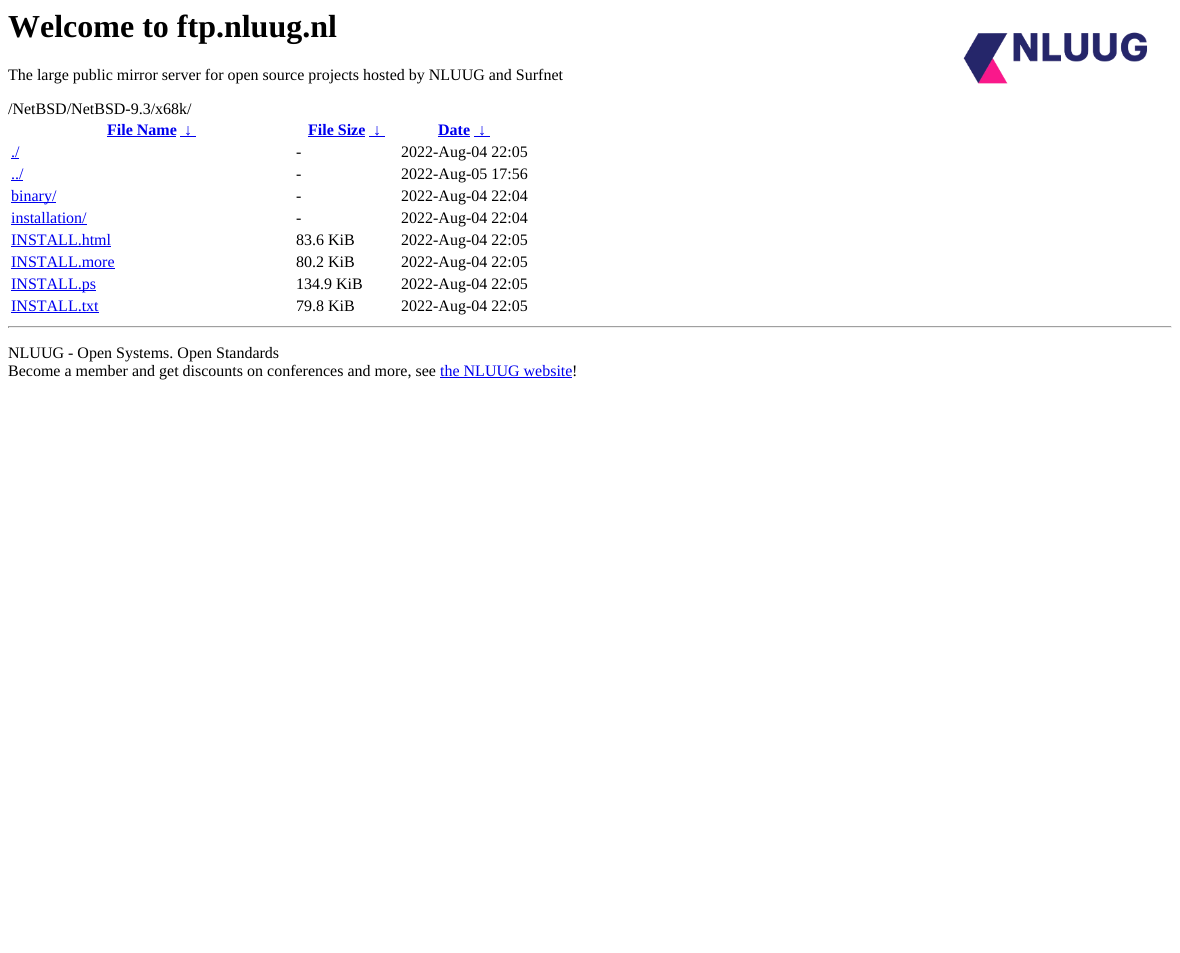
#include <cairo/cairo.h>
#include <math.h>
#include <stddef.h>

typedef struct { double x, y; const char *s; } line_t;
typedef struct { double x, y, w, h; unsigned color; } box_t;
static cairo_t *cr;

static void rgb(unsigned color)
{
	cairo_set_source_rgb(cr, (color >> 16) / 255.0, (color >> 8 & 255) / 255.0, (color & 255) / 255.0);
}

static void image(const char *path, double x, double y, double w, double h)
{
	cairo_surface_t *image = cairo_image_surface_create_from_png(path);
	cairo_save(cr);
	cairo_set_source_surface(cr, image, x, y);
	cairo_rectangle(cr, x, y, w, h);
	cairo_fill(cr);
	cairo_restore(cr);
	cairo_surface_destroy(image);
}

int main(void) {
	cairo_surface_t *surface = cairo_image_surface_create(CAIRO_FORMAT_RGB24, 1180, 953);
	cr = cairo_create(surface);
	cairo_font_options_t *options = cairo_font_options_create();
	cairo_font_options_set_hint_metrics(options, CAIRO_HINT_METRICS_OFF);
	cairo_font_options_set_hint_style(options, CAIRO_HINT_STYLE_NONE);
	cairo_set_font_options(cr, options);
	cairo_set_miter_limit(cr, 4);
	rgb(0xffffff);
	cairo_paint(cr);
	image("img/1.png", 963, 32, 185, 52);
	{
		static const box_t items[] = {
			{107, 136, 69, 1, 0x0000ee},
			{180, 136, 16, 1, 0x0000ee},
			{308, 136, 57, 1, 0x0000ee},
			{369, 136, 16, 1, 0x0000ee},
			{438, 136, 32, 1, 0x0000ee},
			{474, 136, 16, 1, 0x0000ee},
			{11, 158, 8, 1, 0x0000ee},
			{11, 180, 12, 1, 0x0000ee},
			{11, 202, 45, 1, 0x0000ee},
			{11, 224, 76, 1, 0x0000ee},
			{11, 246, 100, 1, 0x0000ee},
			{11, 268, 104, 1, 0x0000ee},
			{11, 290, 85, 1, 0x0000ee},
			{11, 312, 88, 1, 0x0000ee},
			{8, 326, 1164, 1, 0x9f9f9f},
			{1171, 326, 1, 2, 0xeeeeee},
			{8, 327, 1164, 1, 0xeeeeee},
			{8, 326, 1, 2, 0x9f9f9f},
			{440, 377, 132, 1, 0x0000ee},
		};
		for (size_t i = 0; i < sizeof items / sizeof *items; i++) {
			rgb(items[i].color);
			cairo_rectangle(cr, items[i].x, items[i].y, items[i].w, items[i].h);
			cairo_fill(cr);
		}
	}
	cairo_select_font_face(cr, "Liberation Serif", CAIRO_FONT_SLANT_NORMAL, CAIRO_FONT_WEIGHT_BOLD);
	cairo_set_font_size(cr, 32);
	rgb(0x000000);
	cairo_move_to(cr, 8, 37);
	cairo_show_text(cr, "Welcome to ftp.nluug.nl");
	cairo_select_font_face(cr, "Liberation Serif", CAIRO_FONT_SLANT_NORMAL, CAIRO_FONT_WEIGHT_NORMAL);
	cairo_set_font_size(cr, 16);
	cairo_move_to(cr, 8, 80);
	cairo_show_text(cr, "The large public mirror server for open source projects hosted by NLUUG and Surfnet");
	cairo_move_to(cr, 8, 114);
	cairo_show_text(cr, "/NetBSD/NetBSD-9.3/x68k/");
	cairo_select_font_face(cr, "Liberation Serif", CAIRO_FONT_SLANT_NORMAL, CAIRO_FONT_WEIGHT_BOLD);
	rgb(0x0000ee);
	{
		static const line_t items[] = {
			{107, 135, "File Name"},
			{184, 135, "↓"},
			{308, 135, "File Size"},
			{373, 135, "↓"},
			{438, 135, "Date"},
			{478, 135, "↓"},
		};
		for (size_t i = 0; i < sizeof items / sizeof *items; i++) {
			cairo_move_to(cr, items[i].x, items[i].y);
			cairo_show_text(cr, items[i].s);
		}
	}
	cairo_select_font_face(cr, "Liberation Serif", CAIRO_FONT_SLANT_NORMAL, CAIRO_FONT_WEIGHT_NORMAL);
	cairo_move_to(cr, 11, 157);
	cairo_show_text(cr, "./");
	rgb(0x000000);
	cairo_move_to(cr, 296, 157);
	cairo_show_text(cr, "-");
	cairo_move_to(cr, 401, 157);
	cairo_show_text(cr, "2022-Aug-04 22:05");
	rgb(0x0000ee);
	cairo_move_to(cr, 11, 179);
	cairo_show_text(cr, "../");
	rgb(0x000000);
	cairo_move_to(cr, 296, 179);
	cairo_show_text(cr, "-");
	cairo_move_to(cr, 401, 179);
	cairo_show_text(cr, "2022-Aug-05 17:56");
	rgb(0x0000ee);
	cairo_move_to(cr, 11, 201);
	cairo_show_text(cr, "binary/");
	rgb(0x000000);
	cairo_move_to(cr, 296, 201);
	cairo_show_text(cr, "-");
	cairo_move_to(cr, 401, 201);
	cairo_show_text(cr, "2022-Aug-04 22:04");
	rgb(0x0000ee);
	cairo_move_to(cr, 11, 223);
	cairo_show_text(cr, "installation/");
	rgb(0x000000);
	cairo_move_to(cr, 296, 223);
	cairo_show_text(cr, "-");
	cairo_move_to(cr, 401, 223);
	cairo_show_text(cr, "2022-Aug-04 22:04");
	rgb(0x0000ee);
	cairo_move_to(cr, 11, 245);
	cairo_show_text(cr, "INSTALL.html");
	rgb(0x000000);
	cairo_move_to(cr, 296, 245);
	cairo_show_text(cr, "83.6 KiB");
	cairo_move_to(cr, 401, 245);
	cairo_show_text(cr, "2022-Aug-04 22:05");
	rgb(0x0000ee);
	cairo_move_to(cr, 11, 267);
	cairo_show_text(cr, "INSTALL.more");
	rgb(0x000000);
	cairo_move_to(cr, 296, 267);
	cairo_show_text(cr, "80.2 KiB");
	cairo_move_to(cr, 401, 267);
	cairo_show_text(cr, "2022-Aug-04 22:05");
	rgb(0x0000ee);
	cairo_move_to(cr, 11, 289);
	cairo_show_text(cr, "INSTALL.ps");
	rgb(0x000000);
	cairo_move_to(cr, 296, 289);
	cairo_show_text(cr, "134.9 KiB");
	cairo_move_to(cr, 401, 289);
	cairo_show_text(cr, "2022-Aug-04 22:05");
	rgb(0x0000ee);
	cairo_move_to(cr, 11, 311);
	cairo_show_text(cr, "INSTALL.txt");
	rgb(0x000000);
	{
		static const line_t items[] = {
			{296, 311, "79.8 KiB"},
			{401, 311, "2022-Aug-04 22:05"},
			{8, 358, "NLUUG - Open Systems. Open Standards"},
			{8, 376, "Become a member and get discounts on conferences and more, see"},
		};
		for (size_t i = 0; i < sizeof items / sizeof *items; i++) {
			cairo_move_to(cr, items[i].x, items[i].y);
			cairo_show_text(cr, items[i].s);
		}
	}
	rgb(0x0000ee);
	cairo_move_to(cr, 440, 376);
	cairo_show_text(cr, "the NLUUG website");
	rgb(0x000000);
	cairo_move_to(cr, 572, 376);
	cairo_show_text(cr, "!");
	cairo_surface_write_to_png(surface, "page.png");
	cairo_font_options_destroy(options);
	cairo_destroy(cr);
	cairo_surface_destroy(surface);
	return 0;
}
